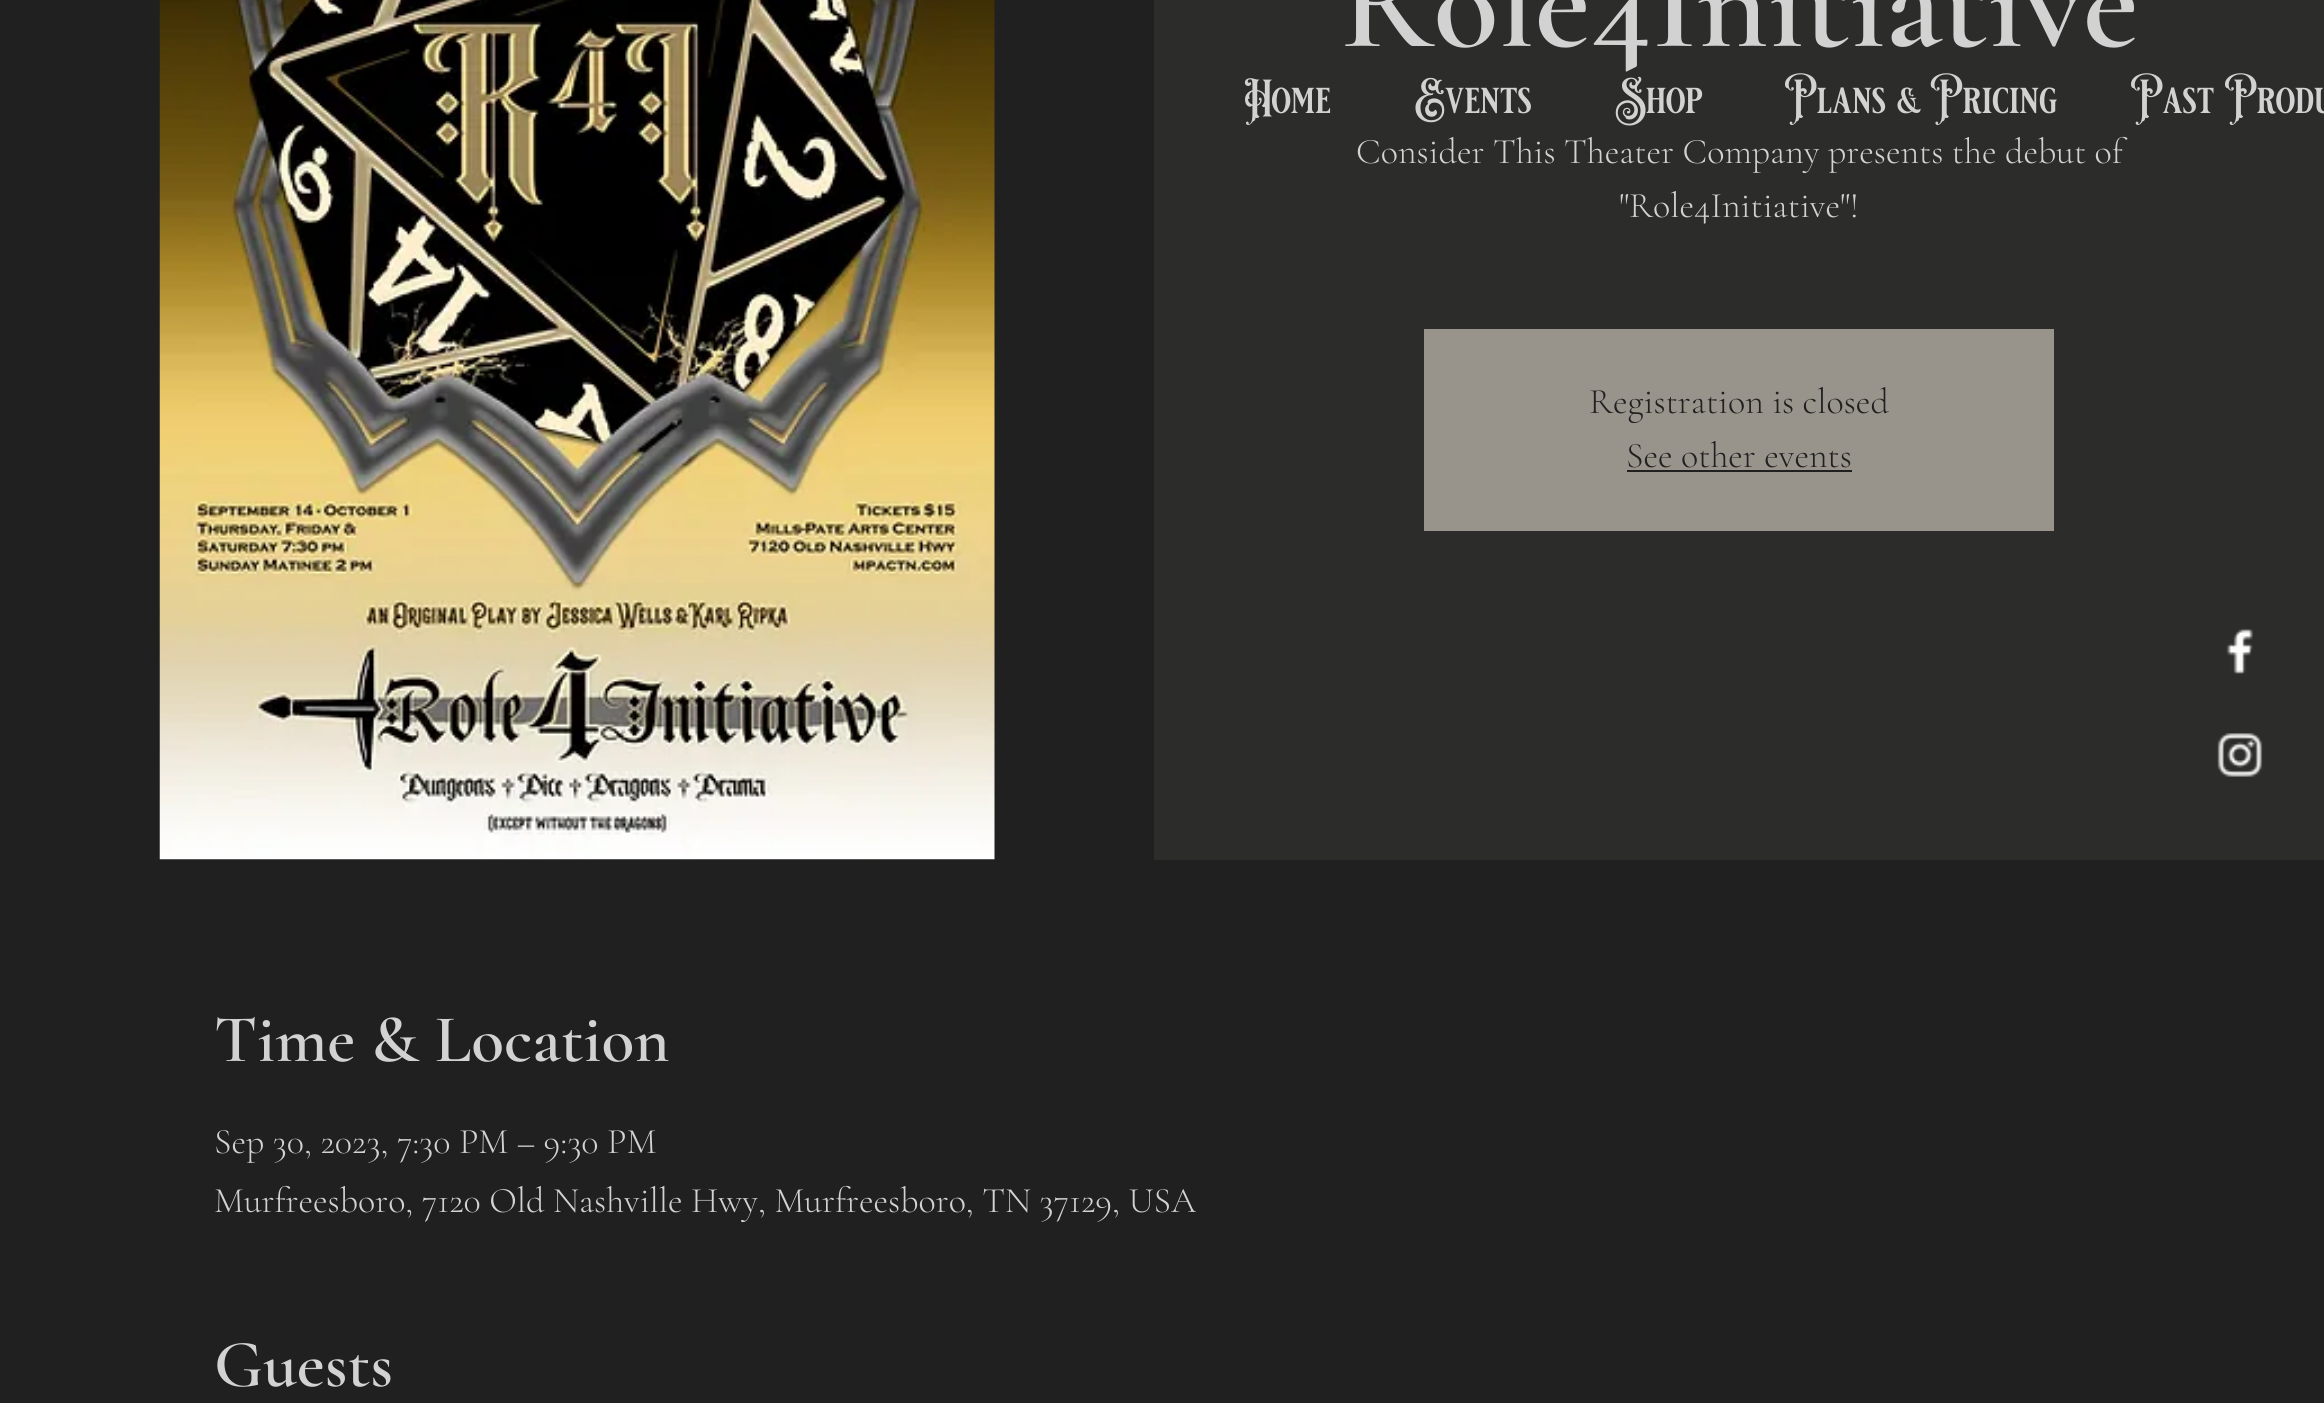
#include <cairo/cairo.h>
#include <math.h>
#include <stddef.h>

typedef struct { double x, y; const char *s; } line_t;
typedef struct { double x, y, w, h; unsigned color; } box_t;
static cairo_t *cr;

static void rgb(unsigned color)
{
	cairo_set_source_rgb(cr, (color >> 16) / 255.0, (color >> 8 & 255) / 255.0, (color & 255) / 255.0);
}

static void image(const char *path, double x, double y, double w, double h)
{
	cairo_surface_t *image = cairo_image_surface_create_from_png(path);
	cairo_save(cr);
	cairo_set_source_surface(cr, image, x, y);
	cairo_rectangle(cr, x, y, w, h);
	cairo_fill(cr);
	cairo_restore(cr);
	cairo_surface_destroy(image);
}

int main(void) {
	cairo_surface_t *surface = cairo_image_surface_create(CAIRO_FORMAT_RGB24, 2324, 1403);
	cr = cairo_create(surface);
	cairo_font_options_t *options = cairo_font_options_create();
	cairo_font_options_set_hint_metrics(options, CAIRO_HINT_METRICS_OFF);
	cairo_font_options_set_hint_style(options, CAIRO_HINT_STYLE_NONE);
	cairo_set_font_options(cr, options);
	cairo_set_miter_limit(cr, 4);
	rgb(0x202020);
	cairo_paint(cr);
	image("img/1.png", 159, 0, 836, 860);
	{
		static const box_t items[] = {
			{1154, 0, 1170, 860, 0x2c2c2b},
			{1424, 329, 630, 202, 0x99948b},
			{1627, 470, 225, 2, 0x202020},
		};
		for (size_t i = 0; i < sizeof items / sizeof *items; i++) {
			rgb(items[i].color);
			cairo_rectangle(cr, items[i].x, items[i].y, items[i].w, items[i].h);
			cairo_fill(cr);
		}
	}
	image("img/2.png", 2226, 629, 27, 45);
	image("img/3.png", 2217, 733, 46, 44);
	cairo_select_font_face(cr, "Cormorant Garamond SemiBold", CAIRO_FONT_SLANT_NORMAL, CAIRO_FONT_WEIGHT_NORMAL);
	cairo_set_font_size(cr, 135);
	rgb(0xd2d2d2);
	cairo_move_to(cr, 1340, 46);
	cairo_show_text(cr, "Role4Initiative");
	cairo_select_font_face(cr, "Cormorant Garamond Light", CAIRO_FONT_SLANT_NORMAL, CAIRO_FONT_WEIGHT_NORMAL);
	cairo_set_font_size(cr, 36);
	cairo_move_to(cr, 1356, 163);
	cairo_show_text(cr, "Consider This Theater Company presents the debut of");
	cairo_move_to(cr, 1619, 217);
	cairo_show_text(cr, "\"Role4Initiative\"!");
	rgb(0x202020);
	cairo_move_to(cr, 1589, 413);
	cairo_show_text(cr, "Registration is closed");
	cairo_move_to(cr, 1626, 467);
	cairo_show_text(cr, "See other events");
	cairo_select_font_face(cr, "Cormorant Garamond SemiBold", CAIRO_FONT_SLANT_NORMAL, CAIRO_FONT_WEIGHT_NORMAL);
	cairo_set_font_size(cr, 67.5);
	rgb(0xd2d2d2);
	cairo_move_to(cr, 214, 1061);
	cairo_show_text(cr, "Time & Location");
	cairo_select_font_face(cr, "Cormorant Garamond Light", CAIRO_FONT_SLANT_NORMAL, CAIRO_FONT_WEIGHT_NORMAL);
	cairo_set_font_size(cr, 36);
	cairo_move_to(cr, 214, 1153);
	cairo_show_text(cr, "Sep 30, 2023, 7:30 PM – 9:30 PM");
	cairo_move_to(cr, 214, 1212);
	cairo_show_text(cr, "Murfreesboro, 7120 Old Nashville Hwy, Murfreesboro, TN 37129, USA");
	cairo_select_font_face(cr, "Cormorant Garamond SemiBold", CAIRO_FONT_SLANT_NORMAL, CAIRO_FONT_WEIGHT_NORMAL);
	cairo_set_font_size(cr, 67.5);
	cairo_move_to(cr, 214, 1386);
	cairo_show_text(cr, "Guests");
	cairo_select_font_face(cr, "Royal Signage", CAIRO_FONT_SLANT_NORMAL, CAIRO_FONT_WEIGHT_NORMAL);
	cairo_set_font_size(cr, 36);
	{
		static const line_t items[] = {
			{1245, 113, "Home"},
			{1415, 113, "Events"},
			{1615, 113, "Shop"},
			{1785, 113, "Plans & Pricing"},
			{2131, 113, "Past Produ"},
		};
		for (size_t i = 0; i < sizeof items / sizeof *items; i++) {
			cairo_move_to(cr, items[i].x, items[i].y);
			cairo_show_text(cr, items[i].s);
		}
	}
	cairo_surface_write_to_png(surface, "page.png");
	cairo_font_options_destroy(options);
	cairo_destroy(cr);
	cairo_surface_destroy(surface);
	return 0;
}
